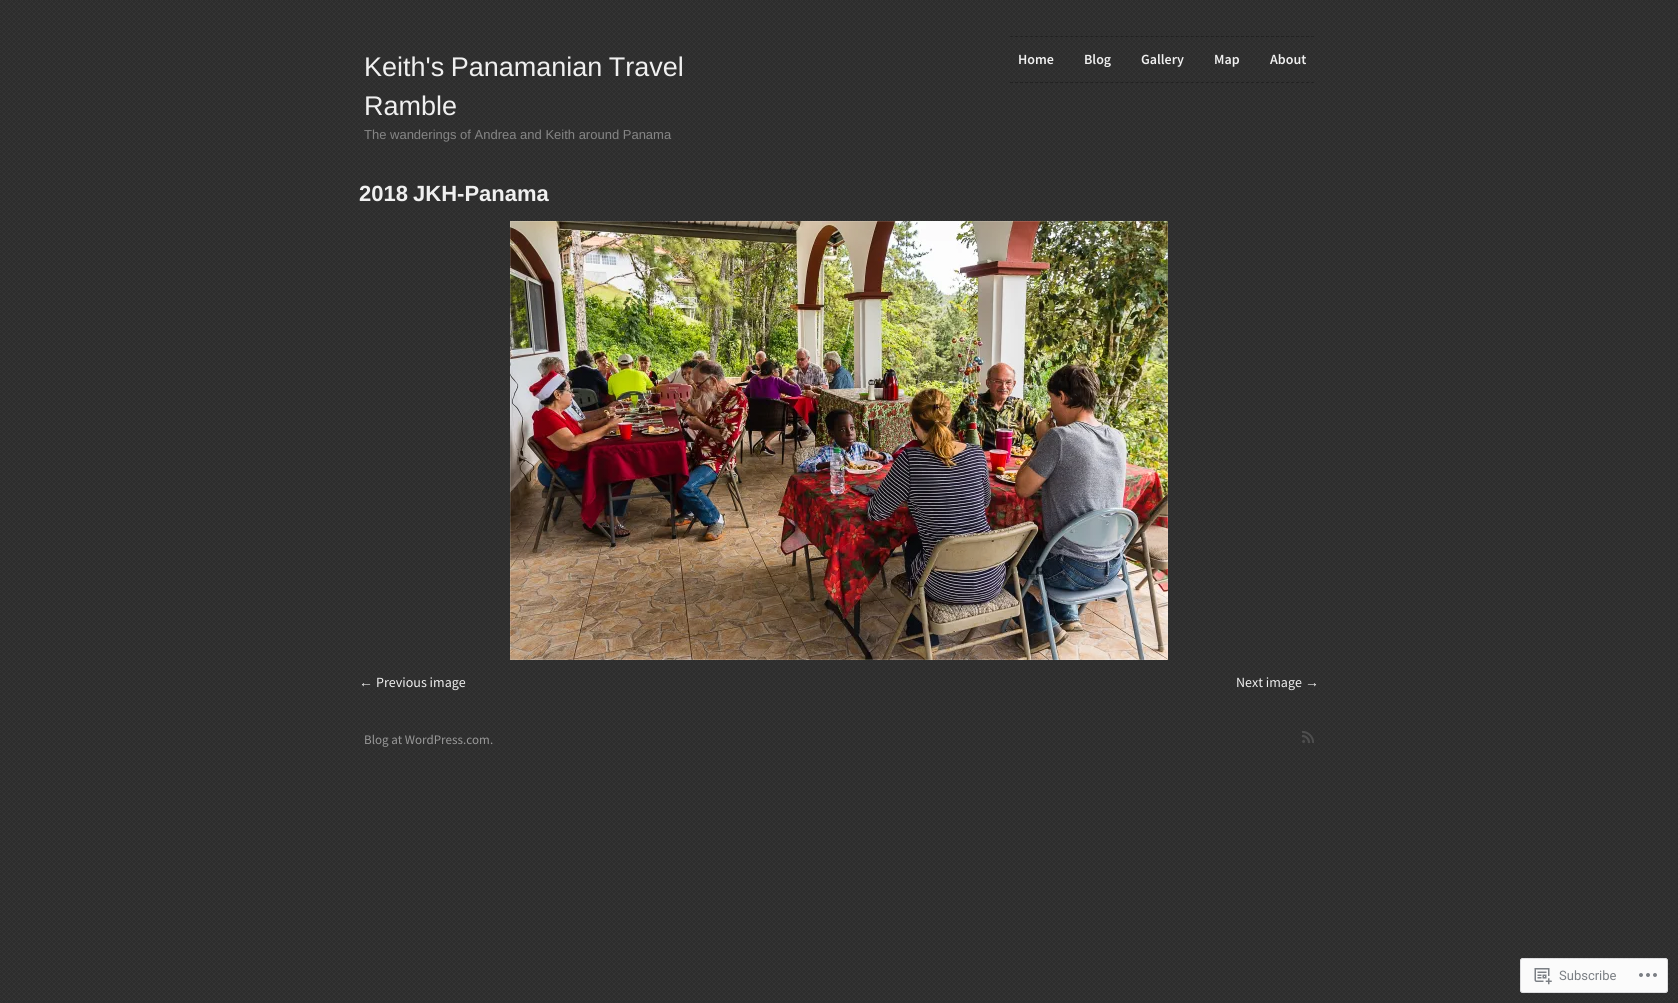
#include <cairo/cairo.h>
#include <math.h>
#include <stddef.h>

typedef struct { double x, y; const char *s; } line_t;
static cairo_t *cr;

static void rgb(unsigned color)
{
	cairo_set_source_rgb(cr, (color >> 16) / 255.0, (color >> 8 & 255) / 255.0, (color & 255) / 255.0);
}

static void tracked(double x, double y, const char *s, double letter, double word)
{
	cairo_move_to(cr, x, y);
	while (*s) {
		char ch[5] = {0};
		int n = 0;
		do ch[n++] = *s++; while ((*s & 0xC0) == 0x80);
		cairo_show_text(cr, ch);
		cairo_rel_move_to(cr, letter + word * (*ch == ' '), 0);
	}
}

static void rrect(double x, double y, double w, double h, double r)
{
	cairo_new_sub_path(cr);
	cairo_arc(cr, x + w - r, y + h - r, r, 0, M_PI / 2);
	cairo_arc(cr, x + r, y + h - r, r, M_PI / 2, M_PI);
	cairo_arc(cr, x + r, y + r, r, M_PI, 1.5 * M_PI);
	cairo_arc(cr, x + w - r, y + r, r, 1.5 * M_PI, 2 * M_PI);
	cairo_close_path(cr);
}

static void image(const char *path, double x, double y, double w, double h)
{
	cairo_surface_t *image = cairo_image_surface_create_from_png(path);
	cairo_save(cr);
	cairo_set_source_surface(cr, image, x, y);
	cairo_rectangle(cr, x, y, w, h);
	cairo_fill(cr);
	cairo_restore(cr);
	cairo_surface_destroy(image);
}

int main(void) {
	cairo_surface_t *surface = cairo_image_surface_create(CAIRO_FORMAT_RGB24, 1678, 1003);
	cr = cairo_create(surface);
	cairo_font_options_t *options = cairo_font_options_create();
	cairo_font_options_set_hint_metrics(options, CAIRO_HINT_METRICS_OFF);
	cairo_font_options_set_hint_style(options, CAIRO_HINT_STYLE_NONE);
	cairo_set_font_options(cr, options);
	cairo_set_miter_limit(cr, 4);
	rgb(0x2d2d2d);
	cairo_paint(cr);
	image("img/1.png", 0, 0, 1678, 1003);
	cairo_new_path(cr);
	cairo_move_to(cr, 1010, 36.5);
	cairo_line_to(cr, 1314, 36.5);
	rgb(0x222222);
	cairo_set_line_width(cr, 1);
	cairo_set_dash(cr, (double[]){3, 2.02}, 2, 0);
	cairo_stroke(cr);
	cairo_new_path(cr);
	cairo_move_to(cr, 1010, 82.5);
	cairo_line_to(cr, 1314, 82.5);
	cairo_stroke(cr);
	image("img/2.png", 510, 221, 658, 439);
	cairo_rectangle(cr, 510.5, 221.5, 657, 438);
	cairo_set_source_rgba(cr, 1, 1, 1, 0.14);
	cairo_set_dash(cr, NULL, 0, 0);
	cairo_stroke(cr);
	image("img/3.png", 1302, 731, 12, 12);
	cairo_set_source_rgba(cr, 1, 1, 1, 0.98);
	rrect(1520, 958, 148, 35, 3);
	cairo_fill(cr);
	rrect(1520.5, 958.5, 147, 34, 2.5);
	cairo_set_source_rgba(cr, 0.863, 0.863, 0.871, 0.98);
	cairo_stroke(cr);
	image("img/4.png", 1534, 968, 18, 17);
	image("img/5.png", 1639, 973, 18, 4);
	cairo_select_font_face(cr, "Liberation Sans", CAIRO_FONT_SLANT_NORMAL, CAIRO_FONT_WEIGHT_NORMAL);
	cairo_set_font_size(cr, 27);
	rgb(0xf0f0f0);
	tracked(364, 76, "Keith's Panamanian Travel", 0, -1);
	cairo_move_to(cr, 364, 115);
	cairo_show_text(cr, "Ramble");
	cairo_set_font_size(cr, 13);
	rgb(0x858585);
	cairo_move_to(cr, 364, 139);
	cairo_show_text(cr, "The wanderings of Andrea and Keith around Panama");
	cairo_select_font_face(cr, "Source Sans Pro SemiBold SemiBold", CAIRO_FONT_SLANT_NORMAL, CAIRO_FONT_WEIGHT_NORMAL);
	cairo_set_font_size(cr, 14);
	rgb(0xf0f0f0);
	{
		static const line_t items[] = {
			{1018, 64, "Home"},
			{1084, 64, "Blog"},
			{1141, 64, "Gallery"},
			{1214, 64, "Map"},
			{1270, 64, "About"},
		};
		for (size_t i = 0; i < sizeof items / sizeof *items; i++) {
			cairo_move_to(cr, items[i].x, items[i].y);
			cairo_show_text(cr, items[i].s);
		}
	}
	cairo_select_font_face(cr, "Liberation Sans", CAIRO_FONT_SLANT_NORMAL, CAIRO_FONT_WEIGHT_BOLD);
	cairo_set_font_size(cr, 22);
	tracked(359, 201, "2018 JKH-Panama", 0, -1);
	cairo_select_font_face(cr, "Liberation Sans", CAIRO_FONT_SLANT_NORMAL, CAIRO_FONT_WEIGHT_NORMAL);
	cairo_set_font_size(cr, 14);
	cairo_move_to(cr, 359, 687);
	cairo_show_text(cr, "←");
	cairo_select_font_face(cr, "Source Sans Pro", CAIRO_FONT_SLANT_NORMAL, CAIRO_FONT_WEIGHT_NORMAL);
	cairo_move_to(cr, 376, 687);
	cairo_show_text(cr, "Previous image");
	cairo_move_to(cr, 1236, 687);
	cairo_show_text(cr, "Next image");
	cairo_select_font_face(cr, "Liberation Sans", CAIRO_FONT_SLANT_NORMAL, CAIRO_FONT_WEIGHT_NORMAL);
	cairo_move_to(cr, 1305, 687);
	cairo_show_text(cr, "→");
	cairo_select_font_face(cr, "Source Sans Pro", CAIRO_FONT_SLANT_NORMAL, CAIRO_FONT_WEIGHT_NORMAL);
	cairo_set_font_size(cr, 13);
	rgb(0x999999);
	cairo_move_to(cr, 364, 744);
	cairo_show_text(cr, "Blog at WordPress.com.");
	cairo_select_font_face(cr, "Roboto", CAIRO_FONT_SLANT_NORMAL, CAIRO_FONT_WEIGHT_NORMAL);
	rgb(0x7b7f84);
	cairo_move_to(cr, 1559, 980);
	cairo_show_text(cr, "Subscribe");
	cairo_surface_write_to_png(surface, "page.png");
	cairo_font_options_destroy(options);
	cairo_destroy(cr);
	cairo_surface_destroy(surface);
	return 0;
}
